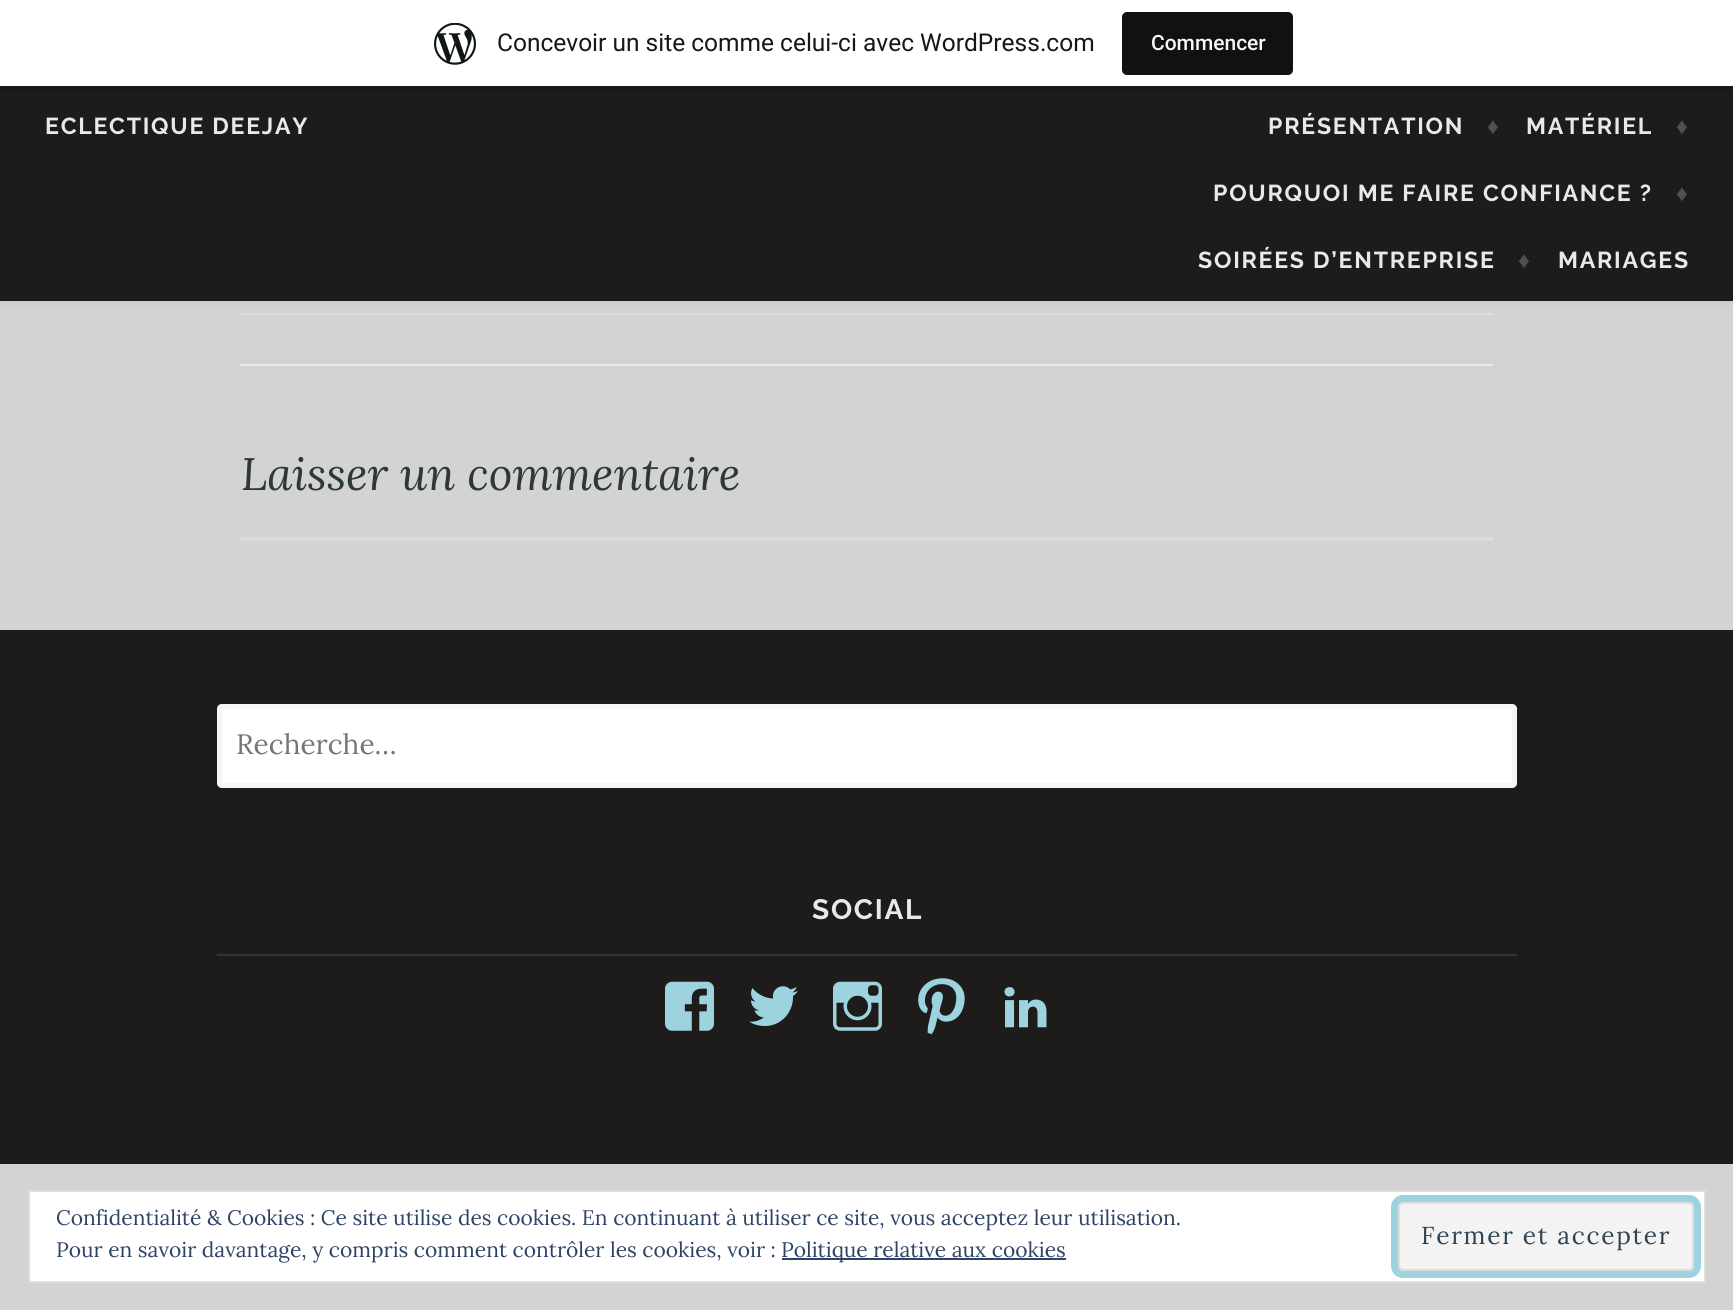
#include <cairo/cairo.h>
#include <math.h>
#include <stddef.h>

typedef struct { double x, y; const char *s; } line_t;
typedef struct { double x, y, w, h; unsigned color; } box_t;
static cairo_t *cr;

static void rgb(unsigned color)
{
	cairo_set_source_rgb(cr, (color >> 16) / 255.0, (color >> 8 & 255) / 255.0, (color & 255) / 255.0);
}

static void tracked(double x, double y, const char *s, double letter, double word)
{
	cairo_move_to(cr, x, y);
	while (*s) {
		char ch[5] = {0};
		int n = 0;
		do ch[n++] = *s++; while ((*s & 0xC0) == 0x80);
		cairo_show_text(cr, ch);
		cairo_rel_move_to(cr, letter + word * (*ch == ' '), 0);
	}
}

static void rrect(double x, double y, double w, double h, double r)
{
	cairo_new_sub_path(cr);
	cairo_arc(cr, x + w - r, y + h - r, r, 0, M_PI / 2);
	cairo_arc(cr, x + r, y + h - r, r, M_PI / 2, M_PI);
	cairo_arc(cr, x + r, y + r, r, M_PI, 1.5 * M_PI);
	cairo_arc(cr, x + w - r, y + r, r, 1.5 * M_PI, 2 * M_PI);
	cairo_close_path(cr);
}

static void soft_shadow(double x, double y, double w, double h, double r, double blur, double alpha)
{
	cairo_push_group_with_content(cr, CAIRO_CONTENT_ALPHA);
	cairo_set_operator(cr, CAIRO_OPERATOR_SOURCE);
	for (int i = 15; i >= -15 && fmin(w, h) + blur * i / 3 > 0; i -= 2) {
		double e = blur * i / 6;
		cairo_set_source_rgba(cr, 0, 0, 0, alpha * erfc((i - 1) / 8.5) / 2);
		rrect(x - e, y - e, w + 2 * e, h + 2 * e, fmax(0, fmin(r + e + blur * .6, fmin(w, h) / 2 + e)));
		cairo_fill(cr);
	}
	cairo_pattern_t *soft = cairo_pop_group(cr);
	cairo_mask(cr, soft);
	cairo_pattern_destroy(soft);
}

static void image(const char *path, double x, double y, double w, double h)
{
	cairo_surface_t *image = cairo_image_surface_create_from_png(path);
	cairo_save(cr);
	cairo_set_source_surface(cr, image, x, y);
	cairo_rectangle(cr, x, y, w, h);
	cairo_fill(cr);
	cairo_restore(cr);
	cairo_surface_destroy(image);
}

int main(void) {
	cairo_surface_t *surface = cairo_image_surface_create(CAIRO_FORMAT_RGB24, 1733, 1310);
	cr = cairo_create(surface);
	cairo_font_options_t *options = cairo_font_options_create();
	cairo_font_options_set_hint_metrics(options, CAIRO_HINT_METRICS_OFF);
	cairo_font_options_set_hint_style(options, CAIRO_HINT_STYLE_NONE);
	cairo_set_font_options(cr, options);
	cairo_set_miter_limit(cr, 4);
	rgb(0xd3d3d3);
	cairo_paint(cr);
	rgb(0xdbdcdc);
	cairo_rectangle(cr, 240, 313, 1253, 2);
	cairo_fill(cr);
	rgb(0x000000);
	soft_shadow(0, 86, 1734, 215, 0, 4.5, 0.1);
	rgb(0x1e1c1b);
	cairo_rectangle(cr, 0, 86, 1733, 215);
	cairo_fill(cr);
	rgb(0x000000);
	soft_shadow(0, 2, 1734, 86, 0, 2, 0.05);
	rgb(0x1b1918);
	cairo_new_path(cr);
	cairo_move_to(cr, 2, 86);
	cairo_line_to(cr, 2, 91);
	cairo_line_to(cr, 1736, 91);
	cairo_line_to(cr, 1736, 5);
	cairo_line_to(cr, 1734, 5);
	cairo_line_to(cr, 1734, 86);
	cairo_close_path(cr);
	cairo_fill(cr);
	rgb(0xffffff);
	cairo_rectangle(cr, 0, 0, 1733, 86);
	cairo_fill(cr);
	image("img/1.png", 434, 23, 42, 42);
	rgb(0x111111);
	rrect(1122, 12, 171, 63, 5);
	cairo_fill(cr);
	{
		static const box_t items[] = {
			{240, 364, 1253, 2, 0xe8e9ea},
			{240, 537, 1253, 4, 0xdcdcde},
			{0, 630, 1733, 534, 0x1e1c1b},
		};
		for (size_t i = 0; i < sizeof items / sizeof *items; i++) {
			rgb(items[i].color);
			cairo_rectangle(cr, items[i].x, items[i].y, items[i].w, items[i].h);
			cairo_fill(cr);
		}
	}
	rgb(0xffffff);
	rrect(217, 704, 1300, 84, 5);
	cairo_fill(cr);
	rrect(219.5, 706.5, 1295, 79, 2.5);
	cairo_set_source_rgba(cr, 0.91, 0.914, 0.918, 0.4);
	cairo_set_line_width(cr, 5);
	cairo_stroke(cr);
	rgb(0x353332);
	cairo_rectangle(cr, 217, 954, 1300, 2);
	cairo_fill(cr);
	image("img/2.png", 665, 981, 49, 50);
	image("img/3.png", 749, 986, 49, 41);
	image("img/4.png", 833, 981, 49, 50);
	image("img/5.png", 918, 978, 47, 57);
	image("img/6.png", 1004, 987, 43, 41);
	rgb(0xffffff);
	cairo_rectangle(cr, 29, 1191, 1676, 91);
	cairo_fill_preserve(cr);
	rgb(0xdedede);
	cairo_set_line_width(cr, 2);
	cairo_stroke(cr);
	rgb(0x2e4467);
	cairo_rectangle(cr, 782, 1258, 284, 2);
	cairo_fill(cr);
	rgb(0xf3f3f3);
	rrect(1399, 1203, 294, 67, 4);
	cairo_fill_preserve(cr);
	rgb(0xdedede);
	cairo_stroke(cr);
	rrect(1394.5, 1198.5, 303, 76, 8.5);
	rgb(0x9dd3df);
	cairo_set_line_width(cr, 7);
	cairo_stroke(cr);
	cairo_select_font_face(cr, "Roboto", CAIRO_FONT_SLANT_NORMAL, CAIRO_FONT_WEIGHT_NORMAL);
	cairo_set_font_size(cr, 24.5);
	rgb(0x171717);
	cairo_move_to(cr, 497, 51);
	cairo_show_text(cr, "Concevoir un site comme celui-ci avec WordPress.com");
	cairo_select_font_face(cr, "Roboto Medium", CAIRO_FONT_SLANT_NORMAL, CAIRO_FONT_WEIGHT_NORMAL);
	cairo_set_font_size(cr, 21);
	rgb(0xf6f7f7);
	cairo_move_to(cr, 1151, 50);
	cairo_show_text(cr, "Commencer");
	cairo_select_font_face(cr, "Raleway", CAIRO_FONT_SLANT_NORMAL, CAIRO_FONT_WEIGHT_BOLD);
	cairo_set_font_size(cr, 23.1);
	rgb(0xe8e9ea);
	tracked(45, 134, "ECLECTIQUE DEEJAY", 1.75, 0);
	tracked(1268, 134, "PRÉSENTATION", 1.75, 0);
	cairo_select_font_face(cr, "Liberation Sans", CAIRO_FONT_SLANT_NORMAL, CAIRO_FONT_WEIGHT_BOLD);
	rgb(0x514f4f);
	tracked(1487, 134, "♦", 1.75, 0);
	cairo_select_font_face(cr, "Raleway", CAIRO_FONT_SLANT_NORMAL, CAIRO_FONT_WEIGHT_BOLD);
	rgb(0xe8e9ea);
	tracked(1526, 134, "MATÉRIEL", 1.75, 0);
	cairo_select_font_face(cr, "Liberation Sans", CAIRO_FONT_SLANT_NORMAL, CAIRO_FONT_WEIGHT_BOLD);
	rgb(0x514f4f);
	tracked(1676, 134, "♦", 1.75, 0);
	cairo_select_font_face(cr, "Raleway", CAIRO_FONT_SLANT_NORMAL, CAIRO_FONT_WEIGHT_BOLD);
	rgb(0xe8e9ea);
	tracked(1213, 201, "POURQUOI ME FAIRE CONFIANCE ?", 1.75, 0);
	cairo_select_font_face(cr, "Liberation Sans", CAIRO_FONT_SLANT_NORMAL, CAIRO_FONT_WEIGHT_BOLD);
	rgb(0x514f4f);
	tracked(1676, 201, "♦", 1.75, 0);
	cairo_select_font_face(cr, "Raleway", CAIRO_FONT_SLANT_NORMAL, CAIRO_FONT_WEIGHT_BOLD);
	rgb(0xe8e9ea);
	tracked(1198, 268, "SOIRÉES D’ENTREPRISE", 1.75, 0);
	cairo_select_font_face(cr, "Liberation Sans", CAIRO_FONT_SLANT_NORMAL, CAIRO_FONT_WEIGHT_BOLD);
	rgb(0x514f4f);
	tracked(1518, 268, "♦", 1.75, 0);
	cairo_select_font_face(cr, "Raleway", CAIRO_FONT_SLANT_NORMAL, CAIRO_FONT_WEIGHT_BOLD);
	rgb(0xe8e9ea);
	tracked(1558, 268, "MARIAGES", 1.75, 0);
	cairo_select_font_face(cr, "Lora", CAIRO_FONT_SLANT_ITALIC, CAIRO_FONT_WEIGHT_NORMAL);
	cairo_set_font_size(cr, 45.5);
	rgb(0x2d3838);
	cairo_move_to(cr, 241, 490);
	cairo_show_text(cr, "Laisser un commentaire");
	cairo_select_font_face(cr, "Lora", CAIRO_FONT_SLANT_NORMAL, CAIRO_FONT_WEIGHT_NORMAL);
	cairo_set_font_size(cr, 28);
	rgb(0x757575);
	cairo_move_to(cr, 236, 754);
	cairo_show_text(cr, "Recherche…");
	cairo_select_font_face(cr, "Raleway", CAIRO_FONT_SLANT_NORMAL, CAIRO_FONT_WEIGHT_BOLD);
	rgb(0xe8e9ea);
	tracked(812, 919, "SOCIAL", 1.75, 0);
	cairo_select_font_face(cr, "Lora", CAIRO_FONT_SLANT_NORMAL, CAIRO_FONT_WEIGHT_NORMAL);
	cairo_set_font_size(cr, 21);
	rgb(0x2e4467);
	{
		static const line_t items[] = {
			{56, 1225, "Confidentialité & Cookies : Ce site utilise des cookies. En continuant à utiliser ce site, vous acceptez leur utilisation."},
			{56, 1257, "Pour en savoir davantage, y compris comment contrôler les cookies, voir :"},
			{781, 1257, "Politique relative aux cookies"},
		};
		for (size_t i = 0; i < sizeof items / sizeof *items; i++) {
			cairo_move_to(cr, items[i].x, items[i].y);
			cairo_show_text(cr, items[i].s);
		}
	}
	cairo_set_font_size(cr, 24.5);
	rgb(0x2e4453);
	tracked(1421, 1244, "Fermer et accepter", 1.75, 0);
	cairo_surface_write_to_png(surface, "page.png");
	cairo_font_options_destroy(options);
	cairo_destroy(cr);
	cairo_surface_destroy(surface);
	return 0;
}
